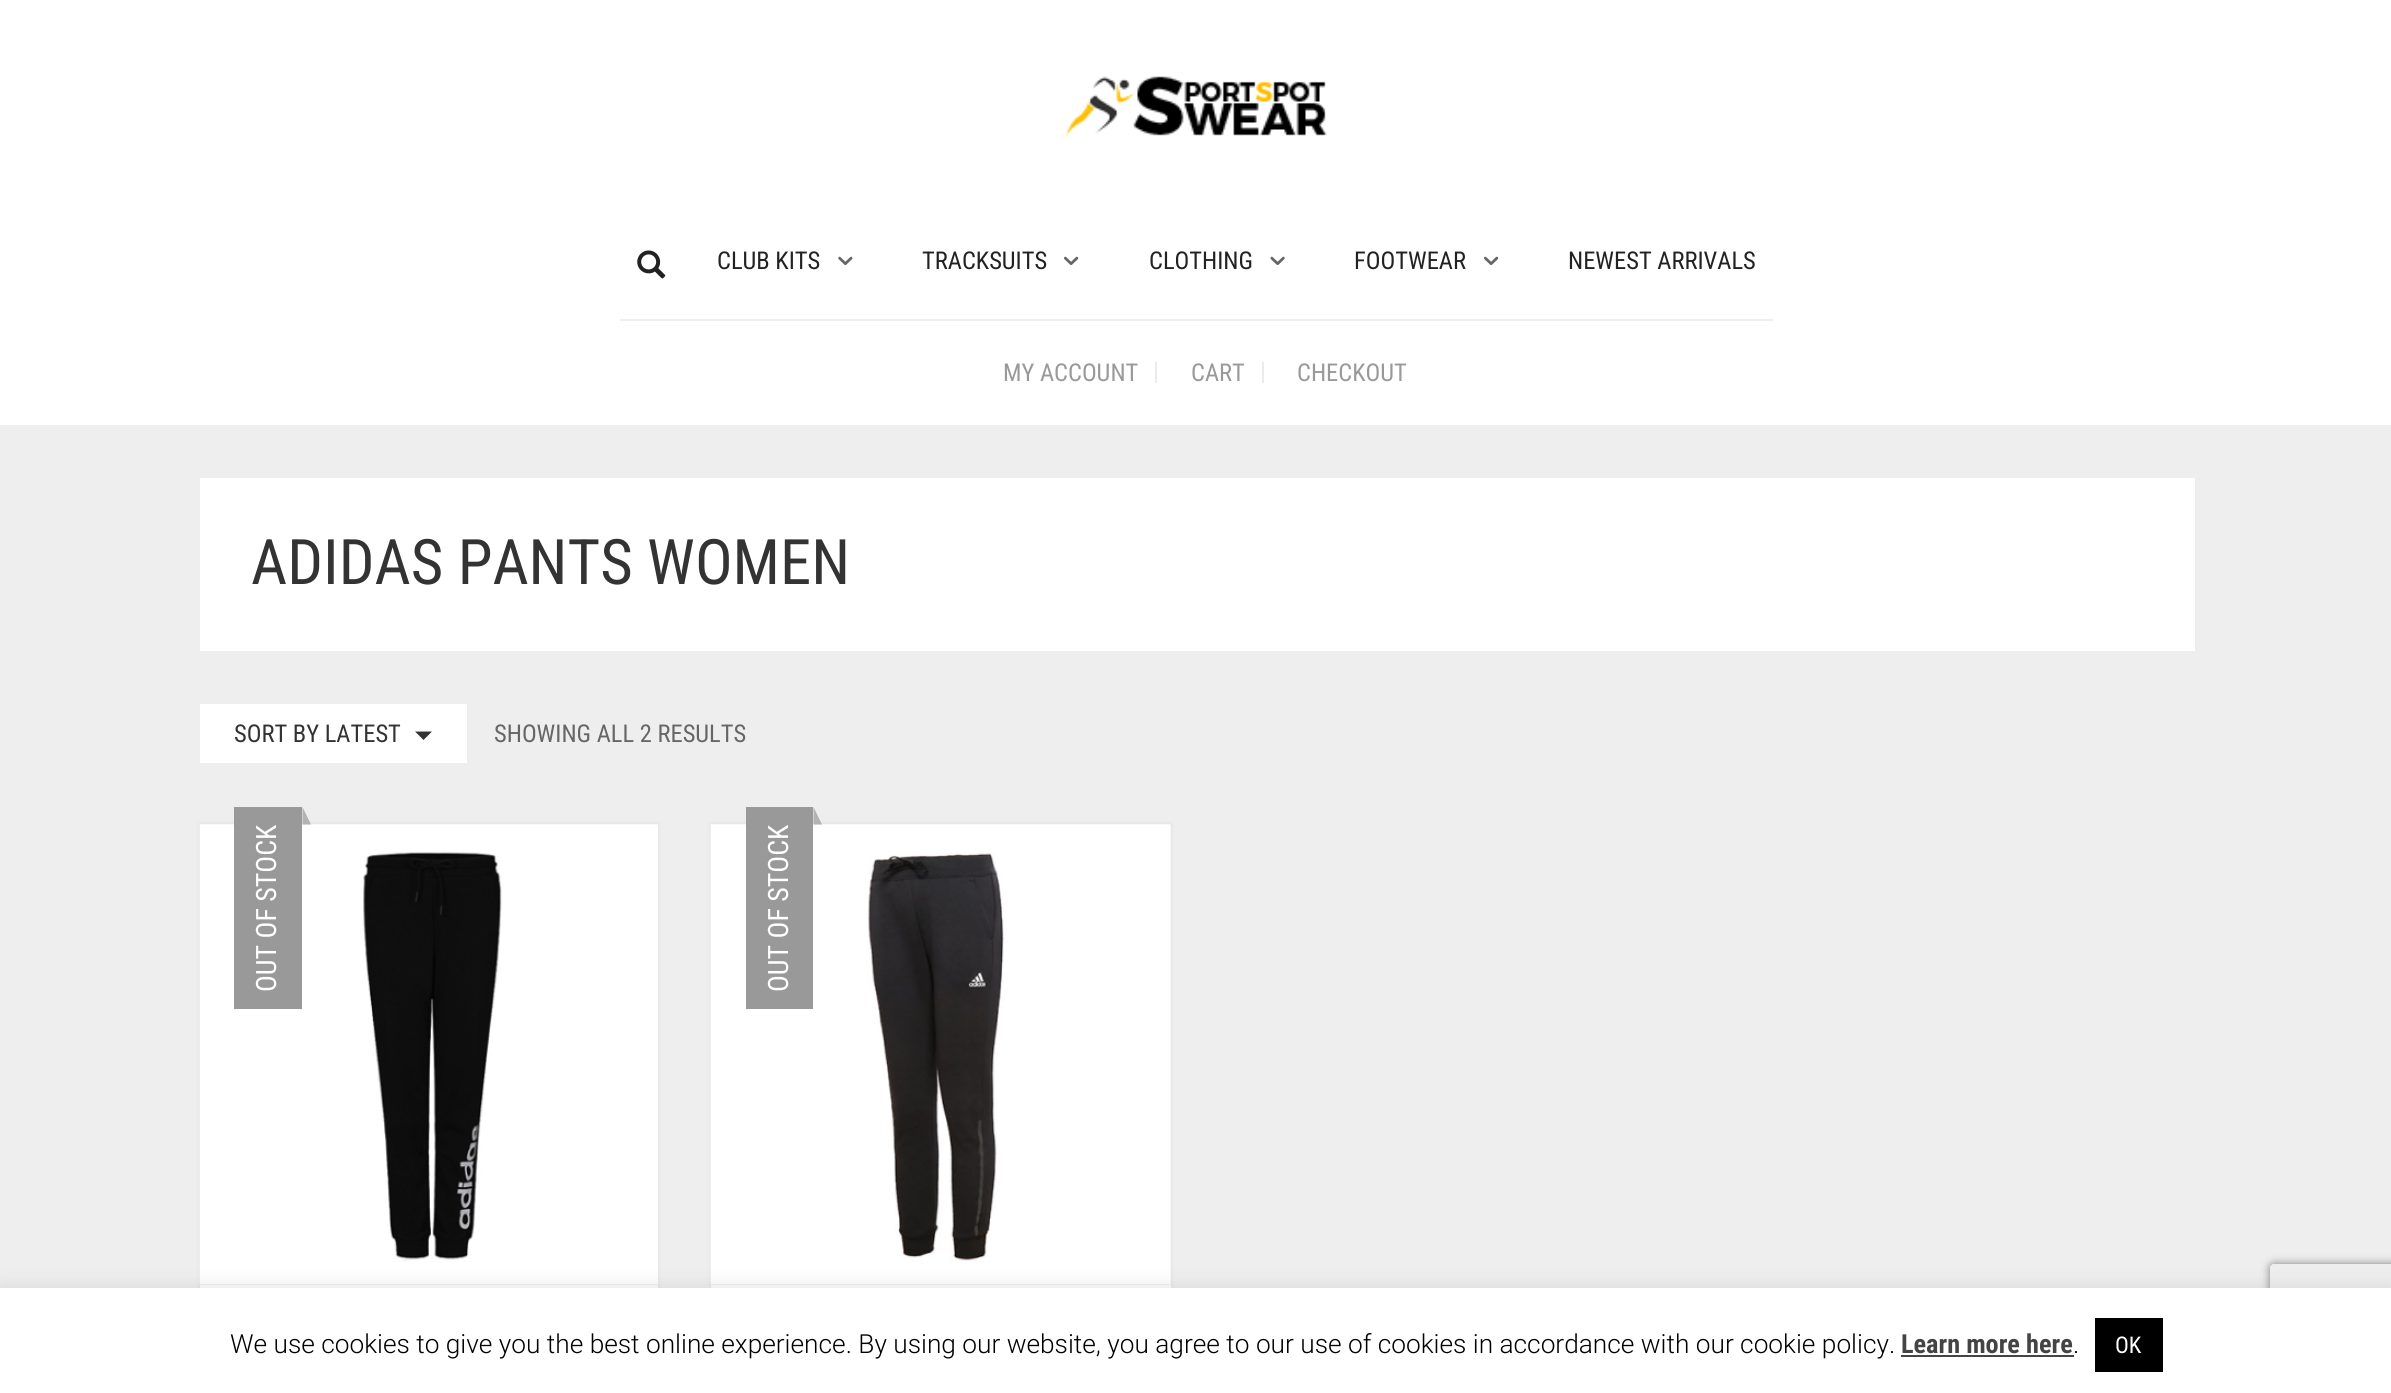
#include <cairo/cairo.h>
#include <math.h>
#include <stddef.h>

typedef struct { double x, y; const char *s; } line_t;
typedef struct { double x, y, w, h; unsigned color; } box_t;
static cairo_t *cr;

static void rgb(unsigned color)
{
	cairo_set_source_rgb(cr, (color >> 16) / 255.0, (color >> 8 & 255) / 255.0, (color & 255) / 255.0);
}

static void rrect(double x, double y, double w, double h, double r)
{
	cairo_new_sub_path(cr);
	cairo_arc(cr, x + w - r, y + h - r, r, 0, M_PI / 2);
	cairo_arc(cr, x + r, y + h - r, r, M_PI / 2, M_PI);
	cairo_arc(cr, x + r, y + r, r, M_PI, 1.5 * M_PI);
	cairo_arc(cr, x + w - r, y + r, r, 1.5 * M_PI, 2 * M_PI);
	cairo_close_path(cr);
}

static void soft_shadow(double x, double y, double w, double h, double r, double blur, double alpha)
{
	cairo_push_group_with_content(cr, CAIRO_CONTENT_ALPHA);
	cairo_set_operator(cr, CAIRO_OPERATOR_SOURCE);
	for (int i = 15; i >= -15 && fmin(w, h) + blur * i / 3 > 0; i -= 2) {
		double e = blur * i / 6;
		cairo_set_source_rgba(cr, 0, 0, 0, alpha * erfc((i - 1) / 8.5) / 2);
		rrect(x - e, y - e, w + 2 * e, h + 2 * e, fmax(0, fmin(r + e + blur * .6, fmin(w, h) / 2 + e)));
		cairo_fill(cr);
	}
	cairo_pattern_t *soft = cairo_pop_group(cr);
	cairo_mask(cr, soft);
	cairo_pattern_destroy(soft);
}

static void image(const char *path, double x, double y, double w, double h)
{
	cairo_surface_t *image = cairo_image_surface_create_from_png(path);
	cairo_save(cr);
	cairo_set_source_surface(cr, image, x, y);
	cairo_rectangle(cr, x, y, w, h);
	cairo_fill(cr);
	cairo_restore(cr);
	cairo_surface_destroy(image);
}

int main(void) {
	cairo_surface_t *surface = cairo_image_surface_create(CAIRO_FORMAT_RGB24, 2391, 1393);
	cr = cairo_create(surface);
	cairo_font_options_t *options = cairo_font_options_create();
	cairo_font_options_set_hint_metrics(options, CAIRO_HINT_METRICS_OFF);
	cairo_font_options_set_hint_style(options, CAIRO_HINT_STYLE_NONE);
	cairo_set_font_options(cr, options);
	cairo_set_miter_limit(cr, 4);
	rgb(0xeeeeee);
	cairo_paint(cr);
	rgb(0xffffff);
	cairo_rectangle(cr, 0, 0, 2391, 425);
	cairo_fill(cr);
	image("img/1.png", 1065, 76, 262, 61);
	rgb(0xeeeeee);
	cairo_rectangle(cr, 620, 319, 1153, 2);
	cairo_fill(cr);
	image("img/2.png", 637, 250, 29, 29);
	image("img/3.png", 838, 256, 15, 10);
	image("img/4.png", 1064, 256, 15, 9);
	image("img/5.png", 1270, 256, 15, 10);
	image("img/4.png", 1484, 256, 15, 9);
	{
		static const box_t items[] = {
			{1155, 362, 2, 21, 0xebebeb},
			{1262, 362, 2, 21, 0xebebeb},
			{200, 478, 1995, 173, 0xffffff},
			{200, 704, 267, 59, 0xffffff},
		};
		for (size_t i = 0; i < sizeof items / sizeof *items; i++) {
			rgb(items[i].color);
			cairo_rectangle(cr, items[i].x, items[i].y, items[i].w, items[i].h);
			cairo_fill(cr);
		}
	}
	rgb(0x333333);
	cairo_new_path(cr);
	cairo_move_to(cr, 415, 731.5);
	cairo_line_to(cr, 432, 731.5);
	cairo_line_to(cr, 423.5, 740);
	cairo_close_path(cr);
	cairo_fill(cr);
	rgb(0xcccccc);
	soft_shadow(200, 824, 458, 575, 0, 2, 0.5);
	rgb(0xffffff);
	cairo_rectangle(cr, 200, 1285, 458, 3);
	cairo_fill(cr);
	rgb(0xf0f0f0);
	cairo_rectangle(cr, 200, 824, 458, 461);
	cairo_fill(cr);
	image("img/6.png", 199, 824, 459, 460);
	rgb(0x999999);
	cairo_rectangle(cr, 234, 807, 68, 202);
	cairo_fill(cr);
	rgb(0xb3b3b3);
	cairo_new_path(cr);
	cairo_move_to(cr, 302.5, 824.5);
	cairo_line_to(cr, 302.5, 807);
	cairo_line_to(cr, 311, 824.5);
	cairo_close_path(cr);
	cairo_fill(cr);
	rgb(0xcccccc);
	soft_shadow(711, 824, 460, 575, 0, 2, 0.5);
	rgb(0xffffff);
	cairo_rectangle(cr, 711, 1285, 460, 3);
	cairo_fill(cr);
	rgb(0xf0f0f0);
	cairo_rectangle(cr, 711, 824, 460, 461);
	cairo_fill(cr);
	image("img/7.png", 710, 824, 461, 460);
	rgb(0x999999);
	cairo_rectangle(cr, 746, 807, 67, 202);
	cairo_fill(cr);
	rgb(0xb3b3b3);
	cairo_new_path(cr);
	cairo_move_to(cr, 813.5, 824.5);
	cairo_line_to(cr, 813.5, 807);
	cairo_line_to(cr, 822, 824.5);
	cairo_close_path(cr);
	cairo_fill(cr);
	rgb(0xacabab);
	soft_shadow(0, 1286, 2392, 105, 0, 9, 0.3);
	cairo_save(cr);
	cairo_set_fill_rule(cr, CAIRO_FILL_RULE_EVEN_ODD);
	cairo_new_path(cr);
	cairo_move_to(cr, 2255, 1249);
	cairo_line_to(cr, 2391, 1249);
	cairo_line_to(cr, 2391, 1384);
	cairo_line_to(cr, 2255, 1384);
	cairo_close_path(cr);
	cairo_move_to(cr, 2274, 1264);
	cairo_line_to(cr, 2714, 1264);
	cairo_curve_to(cr, 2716, 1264, 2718, 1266, 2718, 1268);
	cairo_line_to(cr, 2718, 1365);
	cairo_curve_to(cr, 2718, 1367, 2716, 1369, 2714, 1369);
	cairo_line_to(cr, 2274, 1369);
	cairo_curve_to(cr, 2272, 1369, 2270, 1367, 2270, 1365);
	cairo_line_to(cr, 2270, 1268);
	cairo_curve_to(cr, 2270, 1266, 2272, 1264, 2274, 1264);
	cairo_close_path(cr);
	cairo_clip(cr);
	rgb(0x808080);
	soft_shadow(2270, 1264, 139, 105, 4, 4.5, 1);
	cairo_restore(cr);
	{
		static const box_t items[] = {
			{0, 1288, 2391, 105, 0xffffff},
			{1901, 1355, 173, 2, 0x444444},
			{2095, 1318, 68, 54, 0x000000},
		};
		for (size_t i = 0; i < sizeof items / sizeof *items; i++) {
			rgb(items[i].color);
			cairo_rectangle(cr, items[i].x, items[i].y, items[i].w, items[i].h);
			cairo_fill(cr);
		}
	}
	cairo_select_font_face(cr, "Roboto Condensed", CAIRO_FONT_SLANT_NORMAL, CAIRO_FONT_WEIGHT_NORMAL);
	cairo_set_font_size(cr, 24.5);
	rgb(0x222222);
	{
		static const line_t items[] = {
			{717, 269, "CLUB KITS"},
			{922, 269, "TRACKSUITS"},
			{1149, 269, "CLOTHING"},
			{1354, 269, "FOOTWEAR"},
			{1568, 269, "NEWEST ARRIVALS"},
		};
		for (size_t i = 0; i < sizeof items / sizeof *items; i++) {
			cairo_move_to(cr, items[i].x, items[i].y);
			cairo_show_text(cr, items[i].s);
		}
	}
	rgb(0x999999);
	{
		static const line_t items[] = {
			{1003, 381, "MY ACCOUNT"},
			{1191, 381, "CART"},
			{1297, 381, "CHECKOUT"},
		};
		for (size_t i = 0; i < sizeof items / sizeof *items; i++) {
			cairo_move_to(cr, items[i].x, items[i].y);
			cairo_show_text(cr, items[i].s);
		}
	}
	cairo_set_font_size(cr, 62.75);
	rgb(0x333333);
	cairo_move_to(cr, 251, 584);
	cairo_show_text(cr, "ADIDAS PANTS WOMEN");
	cairo_set_font_size(cr, 24.5);
	cairo_move_to(cr, 234, 742);
	cairo_show_text(cr, "SORT BY LATEST");
	rgb(0x666666);
	cairo_move_to(cr, 494, 742);
	cairo_show_text(cr, "SHOWING ALL 2 RESULTS");
	cairo_set_font_size(cr, 28);
	rgb(0xffffff);
	cairo_save(cr);
	cairo_translate(cr, 276, 992);
	cairo_rotate(cr, -90 * M_PI / 180);
	cairo_move_to(cr, 0, 0);
	cairo_show_text(cr, "OUT OF STOCK");
	cairo_restore(cr);
	cairo_save(cr);
	cairo_translate(cr, 788, 992);
	cairo_rotate(cr, -90 * M_PI / 180);
	cairo_move_to(cr, 0, 0);
	cairo_show_text(cr, "OUT OF STOCK");
	cairo_restore(cr);
	cairo_select_font_face(cr, "Roboto Light", CAIRO_FONT_SLANT_NORMAL, CAIRO_FONT_WEIGHT_NORMAL);
	cairo_set_font_size(cr, 26.25);
	rgb(0x000000);
	cairo_move_to(cr, 230, 1353);
	cairo_show_text(cr, "We use cookies to give you the best online experience. By using our website, you agree to our use of cookies in accordance with our cookie policy.");
	cairo_select_font_face(cr, "Roboto Condensed", CAIRO_FONT_SLANT_NORMAL, CAIRO_FONT_WEIGHT_BOLD);
	rgb(0x444444);
	cairo_move_to(cr, 1901, 1353);
	cairo_show_text(cr, "Learn more here");
	cairo_select_font_face(cr, "Roboto Light", CAIRO_FONT_SLANT_NORMAL, CAIRO_FONT_WEIGHT_NORMAL);
	rgb(0x000000);
	cairo_move_to(cr, 2073, 1353);
	cairo_show_text(cr, ".");
	cairo_select_font_face(cr, "Roboto Condensed", CAIRO_FONT_SLANT_NORMAL, CAIRO_FONT_WEIGHT_NORMAL);
	cairo_set_font_size(cr, 23);
	rgb(0xffffff);
	cairo_move_to(cr, 2115, 1353);
	cairo_show_text(cr, "OK");
	cairo_surface_write_to_png(surface, "page.png");
	cairo_font_options_destroy(options);
	cairo_destroy(cr);
	cairo_surface_destroy(surface);
	return 0;
}
